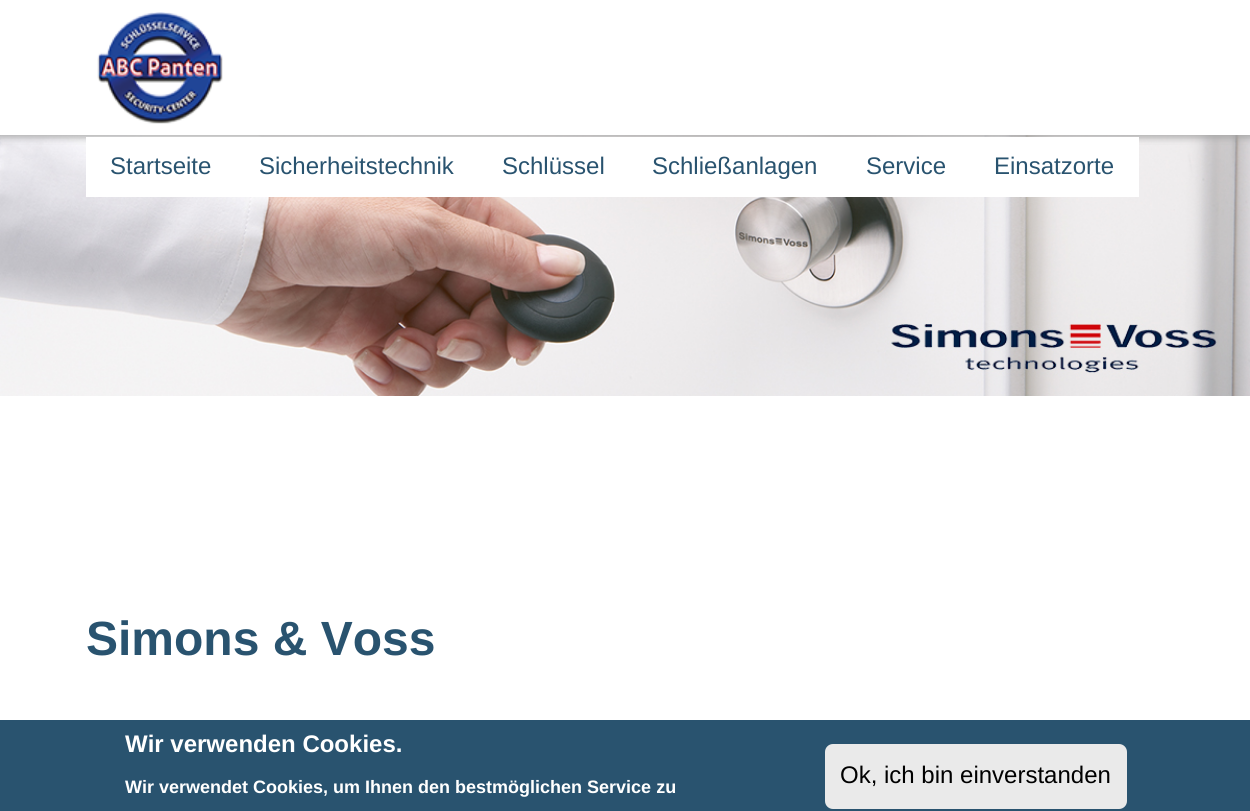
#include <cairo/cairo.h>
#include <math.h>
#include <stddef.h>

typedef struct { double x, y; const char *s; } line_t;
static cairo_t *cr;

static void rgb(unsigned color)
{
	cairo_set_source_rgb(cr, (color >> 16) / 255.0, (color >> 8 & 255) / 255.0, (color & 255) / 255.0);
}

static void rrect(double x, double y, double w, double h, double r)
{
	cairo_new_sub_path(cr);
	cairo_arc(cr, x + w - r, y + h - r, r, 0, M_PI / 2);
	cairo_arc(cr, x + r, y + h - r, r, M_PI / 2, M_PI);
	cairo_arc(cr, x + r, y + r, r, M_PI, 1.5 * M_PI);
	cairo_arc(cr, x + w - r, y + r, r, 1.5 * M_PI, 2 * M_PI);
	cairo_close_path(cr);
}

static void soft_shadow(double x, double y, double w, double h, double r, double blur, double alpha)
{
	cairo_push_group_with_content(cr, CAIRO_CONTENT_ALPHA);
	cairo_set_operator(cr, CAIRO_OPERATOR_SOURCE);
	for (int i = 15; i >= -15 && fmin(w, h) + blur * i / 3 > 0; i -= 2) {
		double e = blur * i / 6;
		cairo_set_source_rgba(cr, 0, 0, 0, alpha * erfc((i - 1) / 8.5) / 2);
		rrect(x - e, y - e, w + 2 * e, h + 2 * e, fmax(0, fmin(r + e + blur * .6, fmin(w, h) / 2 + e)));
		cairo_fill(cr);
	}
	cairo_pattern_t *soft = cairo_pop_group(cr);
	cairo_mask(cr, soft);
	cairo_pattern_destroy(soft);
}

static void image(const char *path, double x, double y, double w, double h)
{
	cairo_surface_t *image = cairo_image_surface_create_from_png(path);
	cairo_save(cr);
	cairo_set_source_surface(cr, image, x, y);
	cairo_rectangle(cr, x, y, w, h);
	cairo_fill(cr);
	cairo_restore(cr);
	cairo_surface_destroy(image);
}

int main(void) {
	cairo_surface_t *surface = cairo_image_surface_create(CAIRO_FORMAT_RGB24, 1250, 811);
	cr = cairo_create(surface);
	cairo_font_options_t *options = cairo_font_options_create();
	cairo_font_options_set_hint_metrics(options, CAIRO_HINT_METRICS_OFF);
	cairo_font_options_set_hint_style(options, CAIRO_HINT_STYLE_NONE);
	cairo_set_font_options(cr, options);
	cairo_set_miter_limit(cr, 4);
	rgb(0xffffff);
	cairo_paint(cr);
	image("img/1.png", 0, 135, 1250, 261);
	cairo_save(cr);
	cairo_rectangle(cr, 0, 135, 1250, 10);
	cairo_clip(cr);
	rgb(0xa1a1a1);
	soft_shadow(-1, -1, 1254, 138, 0, 4, 1);
	cairo_restore(cr);
	image("img/2.png", 97, 12, 126, 112);
	rgb(0xffffff);
	cairo_rectangle(cr, 86, 137, 1053, 60);
	cairo_fill(cr);
	rgb(0x29536f);
	cairo_rectangle(cr, 0, 720, 1250, 91);
	cairo_fill(cr);
	rgb(0xeaeaea);
	rrect(825, 744, 302, 65, 8);
	cairo_fill(cr);
	cairo_select_font_face(cr, "Liberation Sans", CAIRO_FONT_SLANT_NORMAL, CAIRO_FONT_WEIGHT_NORMAL);
	cairo_set_font_size(cr, 24);
	rgb(0x29536f);
	{
		static const line_t items[] = {
			{110, 174, "Startseite"},
			{259, 174, "Sicherheitstechnik"},
			{502, 174, "Schlüssel"},
			{652, 174, "Schließanlagen"},
			{866, 174, "Service"},
			{994, 174, "Einsatzorte"},
		};
		for (size_t i = 0; i < sizeof items / sizeof *items; i++) {
			cairo_move_to(cr, items[i].x, items[i].y);
			cairo_show_text(cr, items[i].s);
		}
	}
	cairo_select_font_face(cr, "Liberation Sans", CAIRO_FONT_SLANT_NORMAL, CAIRO_FONT_WEIGHT_BOLD);
	cairo_set_font_size(cr, 48);
	cairo_move_to(cr, 86, 655);
	cairo_show_text(cr, "Simons & Voss");
	cairo_set_font_size(cr, 24);
	rgb(0xffffff);
	cairo_move_to(cr, 125, 752);
	cairo_show_text(cr, "Wir verwenden Cookies.");
	cairo_set_font_size(cr, 18);
	cairo_move_to(cr, 125, 793);
	cairo_show_text(cr, "Wir verwendet Cookies, um Ihnen den bestmöglichen Service zu");
	cairo_select_font_face(cr, "Liberation Sans", CAIRO_FONT_SLANT_NORMAL, CAIRO_FONT_WEIGHT_NORMAL);
	cairo_set_font_size(cr, 24);
	rgb(0x000000);
	cairo_move_to(cr, 840, 783);
	cairo_show_text(cr, "Ok, ich bin einverstanden");
	cairo_surface_write_to_png(surface, "page.png");
	cairo_font_options_destroy(options);
	cairo_destroy(cr);
	cairo_surface_destroy(surface);
	return 0;
}
